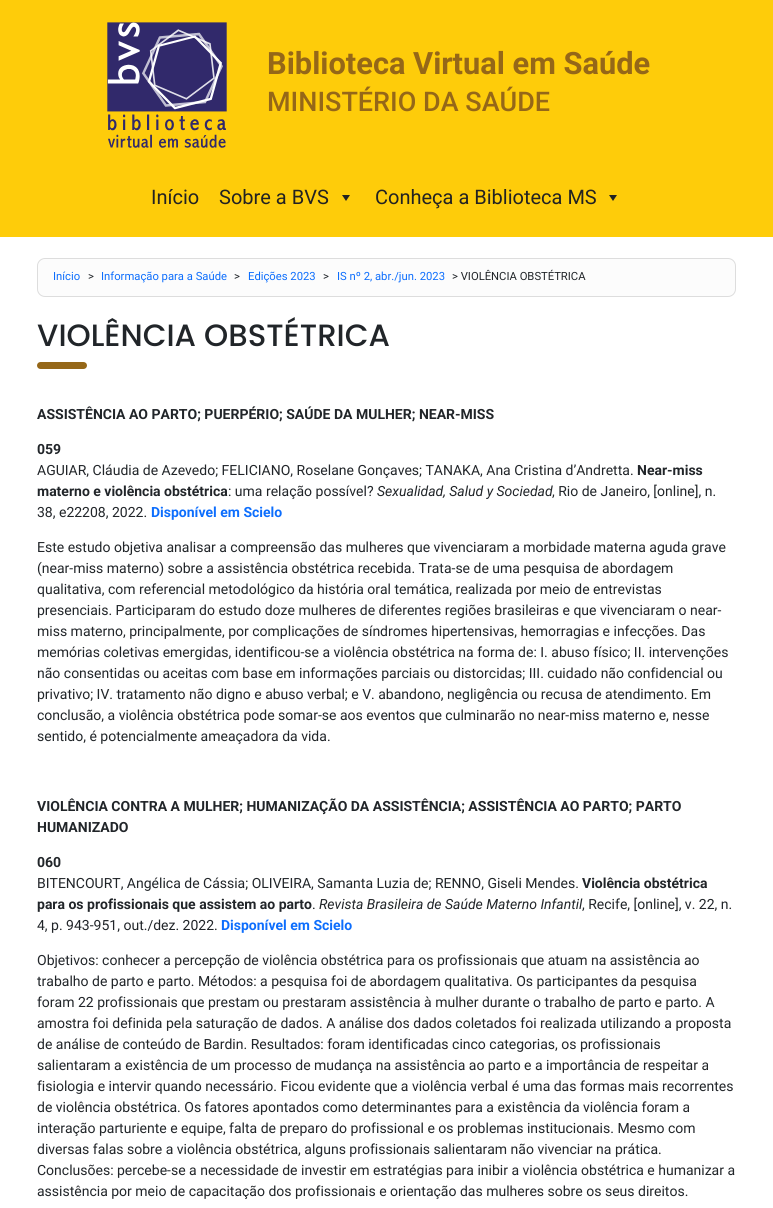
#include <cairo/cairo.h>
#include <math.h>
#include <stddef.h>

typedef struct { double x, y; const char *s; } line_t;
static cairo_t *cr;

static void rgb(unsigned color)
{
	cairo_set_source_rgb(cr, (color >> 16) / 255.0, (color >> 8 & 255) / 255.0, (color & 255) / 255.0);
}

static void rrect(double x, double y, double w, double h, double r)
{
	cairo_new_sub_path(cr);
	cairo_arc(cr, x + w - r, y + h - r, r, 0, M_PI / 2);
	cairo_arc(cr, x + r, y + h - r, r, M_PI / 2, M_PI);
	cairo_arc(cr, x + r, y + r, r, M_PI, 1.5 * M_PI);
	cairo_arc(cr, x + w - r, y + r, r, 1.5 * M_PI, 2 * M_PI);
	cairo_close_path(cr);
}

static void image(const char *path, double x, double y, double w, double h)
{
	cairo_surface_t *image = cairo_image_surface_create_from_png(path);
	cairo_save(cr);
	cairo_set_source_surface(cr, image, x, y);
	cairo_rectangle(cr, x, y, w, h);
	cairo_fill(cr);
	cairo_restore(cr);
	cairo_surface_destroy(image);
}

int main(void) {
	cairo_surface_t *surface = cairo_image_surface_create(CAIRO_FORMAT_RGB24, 773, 1208);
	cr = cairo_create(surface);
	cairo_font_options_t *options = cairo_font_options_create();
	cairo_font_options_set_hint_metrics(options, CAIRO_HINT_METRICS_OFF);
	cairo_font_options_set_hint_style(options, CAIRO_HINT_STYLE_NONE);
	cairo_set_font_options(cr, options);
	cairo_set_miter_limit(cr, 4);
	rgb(0xffffff);
	cairo_paint(cr);
	rgb(0xfecc0a);
	cairo_rectangle(cr, 0, 0, 773, 237);
	cairo_fill(cr);
	image("img/1.png", 107, 22, 120, 126);
	rgb(0x222222);
	cairo_new_path(cr);
	cairo_move_to(cr, 350, 195);
	cairo_line_to(cr, 346, 201);
	cairo_line_to(cr, 342, 195);
	cairo_close_path(cr);
	cairo_fill(cr);
	cairo_new_path(cr);
	cairo_move_to(cr, 617, 195);
	cairo_line_to(cr, 613, 201);
	cairo_line_to(cr, 609, 195);
	cairo_close_path(cr);
	cairo_fill(cr);
	rgb(0xfcfcfc);
	rrect(37.5, 258.5, 698, 38, 7.5);
	cairo_fill_preserve(cr);
	rgb(0xdddddd);
	cairo_set_line_width(cr, 1);
	cairo_stroke(cr);
	rgb(0x956718);
	rrect(37, 362, 50, 7, 3.5);
	cairo_fill(cr);
	cairo_select_font_face(cr, "Roboto", CAIRO_FONT_SLANT_NORMAL, CAIRO_FONT_WEIGHT_BOLD);
	cairo_set_font_size(cr, 30.8);
	cairo_move_to(cr, 267, 74);
	cairo_show_text(cr, "Biblioteca Virtual em Saúde");
	cairo_select_font_face(cr, "Roboto Medium", CAIRO_FONT_SLANT_NORMAL, CAIRO_FONT_WEIGHT_NORMAL);
	cairo_set_font_size(cr, 27);
	cairo_move_to(cr, 267, 111);
	cairo_show_text(cr, "MINISTÉRIO DA SAÚDE");
	cairo_select_font_face(cr, "Roboto", CAIRO_FONT_SLANT_NORMAL, CAIRO_FONT_WEIGHT_NORMAL);
	cairo_set_font_size(cr, 20);
	rgb(0x222222);
	{
		static const line_t items[] = {
			{151, 204, "Início"},
			{219, 204, "Sobre a BVS"},
			{375, 204, "Conheça a Biblioteca MS"},
		};
		for (size_t i = 0; i < sizeof items / sizeof *items; i++) {
			cairo_move_to(cr, items[i].x, items[i].y);
			cairo_show_text(cr, items[i].s);
		}
	}
	cairo_set_font_size(cr, 11.25);
	rgb(0x0d6efd);
	cairo_move_to(cr, 53, 280);
	cairo_show_text(cr, "Início");
	rgb(0x212529);
	cairo_move_to(cr, 88, 280);
	cairo_show_text(cr, ">");
	rgb(0x0d6efd);
	cairo_move_to(cr, 101, 280);
	cairo_show_text(cr, "Informação para a Saúde");
	rgb(0x212529);
	cairo_move_to(cr, 234, 280);
	cairo_show_text(cr, ">");
	rgb(0x0d6efd);
	cairo_move_to(cr, 248, 280);
	cairo_show_text(cr, "Edições 2023");
	rgb(0x212529);
	cairo_move_to(cr, 323, 280);
	cairo_show_text(cr, ">");
	rgb(0x0d6efd);
	cairo_move_to(cr, 337, 280);
	cairo_show_text(cr, "IS nº 2, abr./jun. 2023");
	rgb(0x212529);
	cairo_move_to(cr, 452, 280);
	cairo_show_text(cr, "> VIOLÊNCIA OBSTÉTRICA");
	cairo_select_font_face(cr, "Poppins Medium", CAIRO_FONT_SLANT_NORMAL, CAIRO_FONT_WEIGHT_NORMAL);
	cairo_set_font_size(cr, 30.8);
	cairo_move_to(cr, 37, 346);
	cairo_show_text(cr, "VIOLÊNCIA OBSTÉTRICA");
	cairo_select_font_face(cr, "Roboto", CAIRO_FONT_SLANT_NORMAL, CAIRO_FONT_WEIGHT_BOLD);
	cairo_set_font_size(cr, 14);
	cairo_move_to(cr, 37, 419);
	cairo_show_text(cr, "ASSISTÊNCIA AO PARTO; PUERPÉRIO; SAÚDE DA MULHER; NEAR-MISS");
	cairo_move_to(cr, 37, 454);
	cairo_show_text(cr, "059");
	cairo_select_font_face(cr, "Roboto", CAIRO_FONT_SLANT_NORMAL, CAIRO_FONT_WEIGHT_NORMAL);
	cairo_move_to(cr, 37, 475);
	cairo_show_text(cr, "AGUIAR, Cláudia de Azevedo; FELICIANO, Roselane Gonçaves; TANAKA, Ana Cristina d’Andretta.");
	cairo_select_font_face(cr, "Roboto", CAIRO_FONT_SLANT_NORMAL, CAIRO_FONT_WEIGHT_BOLD);
	cairo_move_to(cr, 637, 475);
	cairo_show_text(cr, "Near-miss");
	cairo_move_to(cr, 37, 496);
	cairo_show_text(cr, "materno e violência obstétrica");
	cairo_select_font_face(cr, "Roboto", CAIRO_FONT_SLANT_NORMAL, CAIRO_FONT_WEIGHT_NORMAL);
	cairo_move_to(cr, 228, 496);
	cairo_show_text(cr, ": uma relação possível?");
	cairo_select_font_face(cr, "Roboto", CAIRO_FONT_SLANT_ITALIC, CAIRO_FONT_WEIGHT_NORMAL);
	cairo_move_to(cr, 377, 496);
	cairo_show_text(cr, "Sexualidad, Salud y Sociedad");
	cairo_select_font_face(cr, "Roboto", CAIRO_FONT_SLANT_NORMAL, CAIRO_FONT_WEIGHT_NORMAL);
	cairo_move_to(cr, 552, 496);
	cairo_show_text(cr, ", Rio de Janeiro, [online], n.");
	cairo_move_to(cr, 37, 517);
	cairo_show_text(cr, "38, e22208, 2022.");
	cairo_select_font_face(cr, "Roboto", CAIRO_FONT_SLANT_NORMAL, CAIRO_FONT_WEIGHT_BOLD);
	rgb(0x0d6efd);
	cairo_move_to(cr, 151, 517);
	cairo_show_text(cr, "Disponível em Scielo");
	cairo_select_font_face(cr, "Roboto", CAIRO_FONT_SLANT_NORMAL, CAIRO_FONT_WEIGHT_NORMAL);
	rgb(0x212529);
	{
		static const line_t items[] = {
			{37, 552, "Este estudo objetiva analisar a compreensão das mulheres que vivenciaram a morbidade materna aguda grave"},
			{37, 573, "(near-miss materno) sobre a assistência obstétrica recebida. Trata-se de uma pesquisa de abordagem"},
			{37, 594, "qualitativa, com referencial metodológico da história oral temática, realizada por meio de entrevistas"},
			{37, 615, "presenciais. Participaram do estudo doze mulheres de diferentes regiões brasileiras e que vivenciaram o near-"},
			{37, 636, "miss materno, principalmente, por complicações de síndromes hipertensivas, hemorragias e infecções. Das"},
			{37, 657, "memórias coletivas emergidas, identificou-se a violência obstétrica na forma de: I. abuso físico; II. intervenções"},
			{37, 678, "não consentidas ou aceitas com base em informações parciais ou distorcidas; III. cuidado não confidencial ou"},
			{37, 699, "privativo; IV. tratamento não digno e abuso verbal; e V. abandono, negligência ou recusa de atendimento. Em"},
			{37, 720, "conclusão, a violência obstétrica pode somar-se aos eventos que culminarão no near-miss materno e, nesse"},
			{37, 741, "sentido, é potencialmente ameaçadora da vida."},
		};
		for (size_t i = 0; i < sizeof items / sizeof *items; i++) {
			cairo_move_to(cr, items[i].x, items[i].y);
			cairo_show_text(cr, items[i].s);
		}
	}
	cairo_select_font_face(cr, "Roboto", CAIRO_FONT_SLANT_NORMAL, CAIRO_FONT_WEIGHT_BOLD);
	{
		static const line_t items[] = {
			{37, 811, "VIOLÊNCIA CONTRA A MULHER; HUMANIZAÇÃO DA ASSISTÊNCIA; ASSISTÊNCIA AO PARTO; PARTO"},
			{37, 832, "HUMANIZADO"},
			{37, 867, "060"},
		};
		for (size_t i = 0; i < sizeof items / sizeof *items; i++) {
			cairo_move_to(cr, items[i].x, items[i].y);
			cairo_show_text(cr, items[i].s);
		}
	}
	cairo_select_font_face(cr, "Roboto", CAIRO_FONT_SLANT_NORMAL, CAIRO_FONT_WEIGHT_NORMAL);
	cairo_move_to(cr, 37, 888);
	cairo_show_text(cr, "BITENCOURT, Angélica de Cássia; OLIVEIRA, Samanta Luzia de; RENNO, Giseli Mendes.");
	cairo_select_font_face(cr, "Roboto", CAIRO_FONT_SLANT_NORMAL, CAIRO_FONT_WEIGHT_BOLD);
	cairo_move_to(cr, 582, 888);
	cairo_show_text(cr, "Violência obstétrica");
	cairo_move_to(cr, 37, 909);
	cairo_show_text(cr, "para os profissionais que assistem ao parto");
	cairo_select_font_face(cr, "Roboto", CAIRO_FONT_SLANT_NORMAL, CAIRO_FONT_WEIGHT_NORMAL);
	cairo_move_to(cr, 312, 909);
	cairo_show_text(cr, ".");
	cairo_select_font_face(cr, "Roboto", CAIRO_FONT_SLANT_ITALIC, CAIRO_FONT_WEIGHT_NORMAL);
	cairo_move_to(cr, 319, 909);
	cairo_show_text(cr, "Revista Brasileira de Saúde Materno Infantil");
	cairo_select_font_face(cr, "Roboto", CAIRO_FONT_SLANT_NORMAL, CAIRO_FONT_WEIGHT_NORMAL);
	cairo_move_to(cr, 582, 909);
	cairo_show_text(cr, ", Recife, [online], v. 22, n.");
	cairo_move_to(cr, 37, 930);
	cairo_show_text(cr, "4, p. 943-951, out./dez. 2022.");
	cairo_select_font_face(cr, "Roboto", CAIRO_FONT_SLANT_NORMAL, CAIRO_FONT_WEIGHT_BOLD);
	rgb(0x0d6efd);
	cairo_move_to(cr, 221, 930);
	cairo_show_text(cr, "Disponível em Scielo");
	cairo_select_font_face(cr, "Roboto", CAIRO_FONT_SLANT_NORMAL, CAIRO_FONT_WEIGHT_NORMAL);
	rgb(0x212529);
	{
		static const line_t items[] = {
			{37, 965, "Objetivos: conhecer a percepção de violência obstétrica para os profissionais que atuam na assistência ao"},
			{37, 986, "trabalho de parto e parto. Métodos: a pesquisa foi de abordagem qualitativa. Os participantes da pesquisa"},
			{37, 1007, "foram 22 profissionais que prestam ou prestaram assistência à mulher durante o trabalho de parto e parto. A"},
			{37, 1028, "amostra foi definida pela saturação de dados. A análise dos dados coletados foi realizada utilizando a proposta"},
			{37, 1049, "de análise de conteúdo de Bardin. Resultados: foram identificadas cinco categorias, os profissionais"},
			{37, 1070, "salientaram a existência de um processo de mudança na assistência ao parto e a importância de respeitar a"},
			{37, 1091, "fisiologia e intervir quando necessário. Ficou evidente que a violência verbal é uma das formas mais recorrentes"},
			{37, 1112, "de violência obstétrica. Os fatores apontados como determinantes para a existência da violência foram a"},
			{37, 1133, "interação parturiente e equipe, falta de preparo do profissional e os problemas institucionais. Mesmo com"},
			{37, 1154, "diversas falas sobre a violência obstétrica, alguns profissionais salientaram não vivenciar na prática."},
			{37, 1175, "Conclusões: percebe-se a necessidade de investir em estratégias para inibir a violência obstétrica e humanizar a"},
			{37, 1196, "assistência por meio de capacitação dos profissionais e orientação das mulheres sobre os seus direitos."},
		};
		for (size_t i = 0; i < sizeof items / sizeof *items; i++) {
			cairo_move_to(cr, items[i].x, items[i].y);
			cairo_show_text(cr, items[i].s);
		}
	}
	cairo_surface_write_to_png(surface, "page.png");
	cairo_font_options_destroy(options);
	cairo_destroy(cr);
	cairo_surface_destroy(surface);
	return 0;
}
